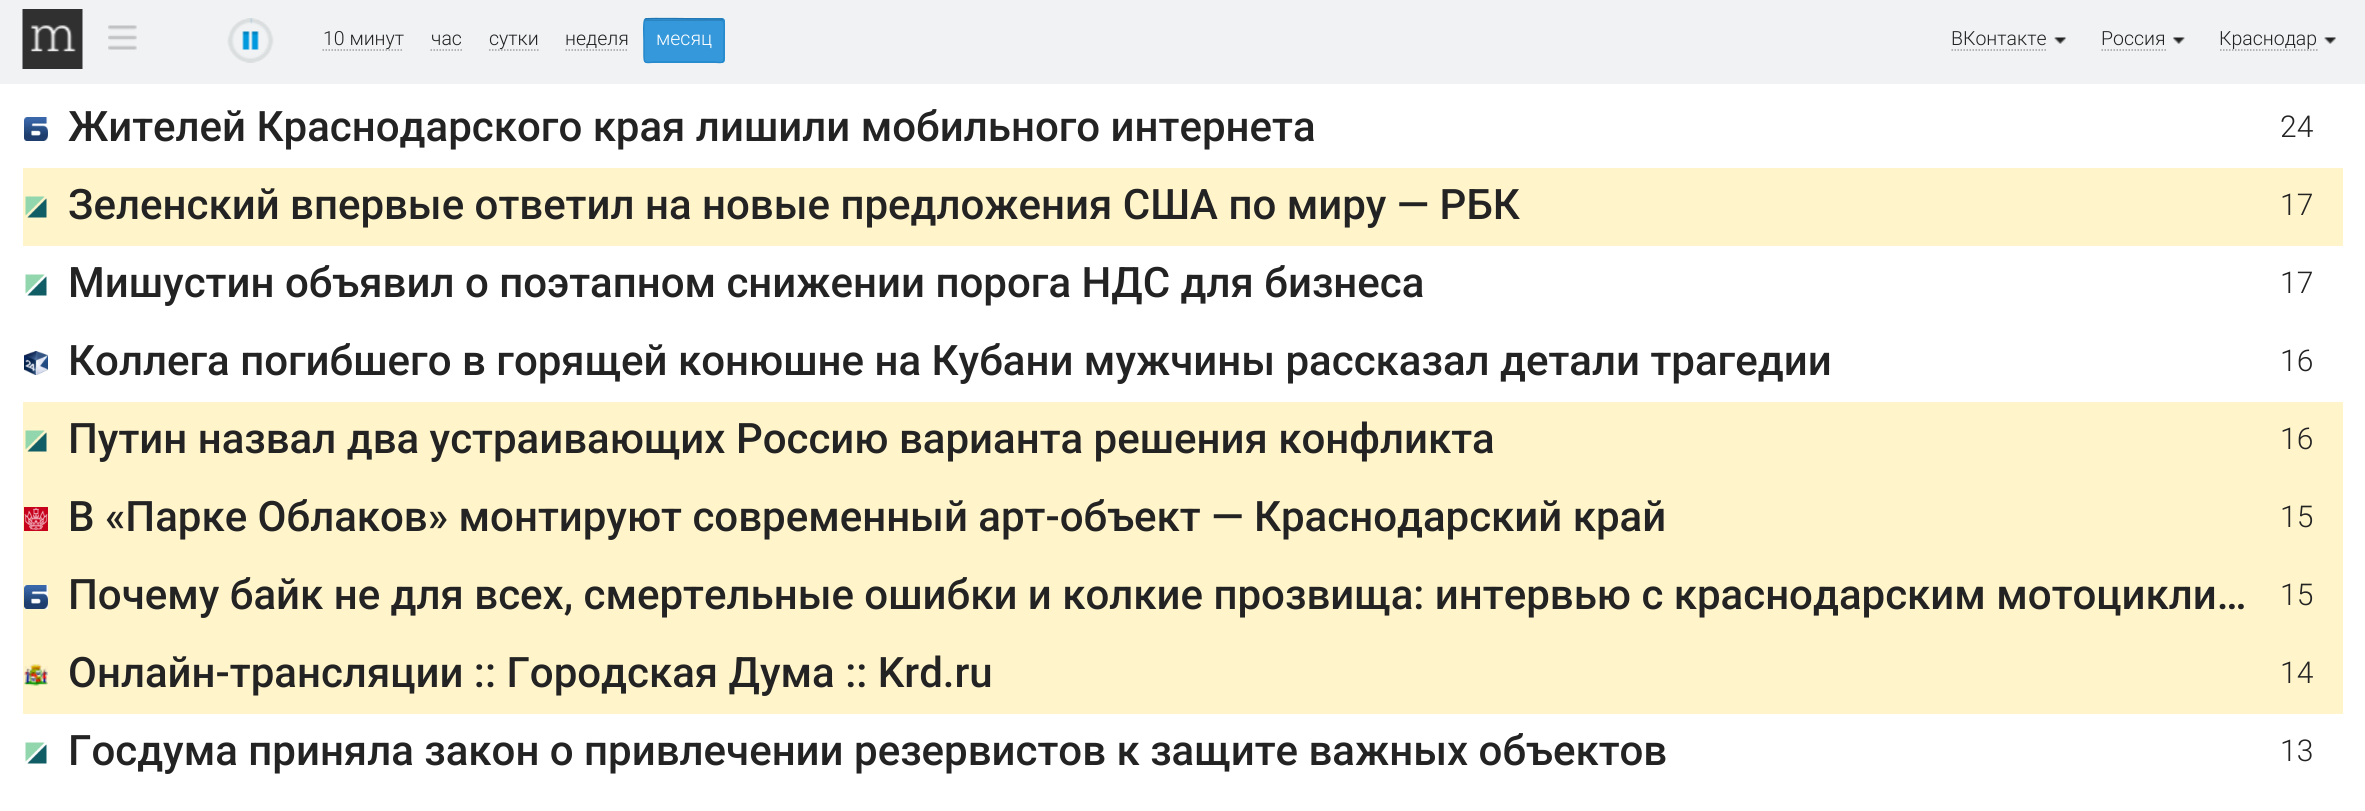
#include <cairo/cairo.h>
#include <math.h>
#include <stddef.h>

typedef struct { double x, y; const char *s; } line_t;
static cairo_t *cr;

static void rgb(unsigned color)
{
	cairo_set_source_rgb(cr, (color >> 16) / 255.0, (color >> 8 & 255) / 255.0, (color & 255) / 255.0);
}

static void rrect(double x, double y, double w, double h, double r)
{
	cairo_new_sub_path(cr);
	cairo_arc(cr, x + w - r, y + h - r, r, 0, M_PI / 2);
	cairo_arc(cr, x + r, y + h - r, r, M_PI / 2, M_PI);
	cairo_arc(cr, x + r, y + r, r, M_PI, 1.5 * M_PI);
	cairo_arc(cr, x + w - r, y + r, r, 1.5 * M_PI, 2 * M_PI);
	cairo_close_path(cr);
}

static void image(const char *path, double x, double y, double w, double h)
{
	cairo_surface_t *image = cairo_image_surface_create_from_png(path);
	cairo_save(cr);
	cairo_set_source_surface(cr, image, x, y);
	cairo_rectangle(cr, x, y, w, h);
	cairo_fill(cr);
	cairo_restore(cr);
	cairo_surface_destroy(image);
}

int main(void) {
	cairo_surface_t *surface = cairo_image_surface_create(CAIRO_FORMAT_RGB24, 2365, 811);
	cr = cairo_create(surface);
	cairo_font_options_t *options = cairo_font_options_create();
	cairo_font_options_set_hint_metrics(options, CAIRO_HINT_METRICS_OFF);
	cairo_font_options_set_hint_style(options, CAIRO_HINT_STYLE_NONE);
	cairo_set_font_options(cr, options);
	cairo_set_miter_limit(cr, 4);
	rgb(0xffffff);
	cairo_paint(cr);
	rgb(0xf0f2f4);
	cairo_rectangle(cr, 0, 0, 2365, 84);
	cairo_fill(cr);
	image("img/1.png", 22, 9, 61, 60);
	image("img/2.png", 108, 25, 29, 25);
	image("img/3.png", 227, 18, 47, 45);
	image("img/4.png", 250, 18, 3, 6);
	cairo_new_path(cr);
	cairo_move_to(cr, 322.5, 50);
	cairo_line_to(cr, 403.5, 50);
	rgb(0x9fa0a2);
	cairo_set_line_width(cr, 1.5);
	cairo_set_dash(cr, (double[]){1.5, 1.5}, 2, 0);
	cairo_stroke(cr);
	cairo_new_path(cr);
	cairo_move_to(cr, 430.5, 50);
	cairo_line_to(cr, 462, 50);
	cairo_stroke(cr);
	cairo_new_path(cr);
	cairo_move_to(cr, 489, 50);
	cairo_line_to(cr, 538.5, 50);
	cairo_stroke(cr);
	cairo_new_path(cr);
	cairo_move_to(cr, 565.5, 50);
	cairo_line_to(cr, 628.5, 50);
	cairo_stroke(cr);
	rgb(0x3498db);
	rrect(644, 18, 81, 45, 3);
	cairo_fill(cr);
	rgb(0x2d84bf);
	cairo_new_path(cr);
	cairo_move_to(cr, 646, 21);
	cairo_line_to(cr, 722, 21);
	cairo_line_to(cr, 723, 22);
	cairo_curve_to(cr, 723, 21, 723, 20, 722, 20);
	cairo_line_to(cr, 646, 20);
	cairo_curve_to(cr, 645, 20, 645, 21, 645, 22);
	cairo_close_path(cr);
	cairo_fill(cr);
	cairo_new_path(cr);
	cairo_move_to(cr, 645, 19.5);
	cairo_line_to(cr, 645.5, 19);
	cairo_curve_to(cr, 647, 18, 702.5, 19, 709, 19);
	cairo_line_to(cr, 721.5, 19);
	cairo_line_to(cr, 723, 19.5);
	rgb(0x1f76b1);
	cairo_set_dash(cr, NULL, 0, 0);
	cairo_stroke(cr);
	cairo_new_path(cr);
	cairo_move_to(cr, 723, 19.5);
	cairo_curve_to(cr, 725, 21, 724, 37.5, 724, 40.5);
	cairo_line_to(cr, 724, 53.5);
	cairo_curve_to(cr, 724, 65.5, 723.5, 62, 709, 62);
	cairo_line_to(cr, 659, 62);
	cairo_curve_to(cr, 644.5, 62, 644, 65.5, 644, 53.5);
	cairo_line_to(cr, 644, 40.5);
	cairo_curve_to(cr, 644, 37.5, 643, 21, 645, 19.5);
	rgb(0x2488cb);
	cairo_stroke(cr);
	cairo_new_path(cr);
	cairo_move_to(cr, 1951.5, 50);
	cairo_line_to(cr, 2047.5, 50);
	rgb(0x9fa0a2);
	cairo_set_dash(cr, (double[]){1.5, 1.5}, 2, 0);
	cairo_stroke(cr);
	image("img/5.png", 2054, 37, 12, 7);
	cairo_new_path(cr);
	cairo_move_to(cr, 2101.5, 50);
	cairo_line_to(cr, 2166, 50);
	cairo_stroke(cr);
	image("img/6.png", 2173, 37, 12, 7);
	cairo_new_path(cr);
	cairo_move_to(cr, 2220, 50);
	cairo_line_to(cr, 2317.5, 50);
	cairo_stroke(cr);
	image("img/7.png", 2324, 37, 12, 7);
	image("img/8.png", 24, 117, 24, 24);
	rgb(0xfff4ca);
	cairo_rectangle(cr, 23, 168, 2320, 78);
	cairo_fill(cr);
	image("img/9.png", 25, 196, 22, 22);
	image("img/10.png", 25, 274, 22, 22);
	image("img/11.png", 24, 351, 24, 24);
	cairo_rectangle(cr, 23, 402, 2320, 312);
	cairo_fill(cr);
	image("img/9.png", 25, 430, 22, 22);
	image("img/12.png", 24, 507, 24, 24);
	image("img/8.png", 24, 585, 24, 24);
	image("img/13.png", 24, 664, 24, 22);
	image("img/10.png", 25, 742, 22, 22);
	cairo_select_font_face(cr, "Roboto Light", CAIRO_FONT_SLANT_NORMAL, CAIRO_FONT_WEIGHT_NORMAL);
	cairo_set_font_size(cr, 19.5);
	rgb(0x232323);
	{
		static const line_t items[] = {
			{323, 45, "10 минут"},
			{431, 45, "час"},
			{489, 45, "сутки"},
			{565, 45, "неделя"},
		};
		for (size_t i = 0; i < sizeof items / sizeof *items; i++) {
			cairo_move_to(cr, items[i].x, items[i].y);
			cairo_show_text(cr, items[i].s);
		}
	}
	rgb(0xffffff);
	cairo_move_to(cr, 656, 45);
	cairo_show_text(cr, "месяц");
	rgb(0x232323);
	{
		static const line_t items[] = {
			{1951, 45, "ВКонтакте"},
			{2101, 45, "Россия"},
			{2219, 45, "Краснодар"},
		};
		for (size_t i = 0; i < sizeof items / sizeof *items; i++) {
			cairo_move_to(cr, items[i].x, items[i].y);
			cairo_show_text(cr, items[i].s);
		}
	}
	cairo_select_font_face(cr, "Roboto Medium", CAIRO_FONT_SLANT_NORMAL, CAIRO_FONT_WEIGHT_NORMAL);
	cairo_set_font_size(cr, 42);
	cairo_move_to(cr, 68, 141);
	cairo_show_text(cr, "Жителей Краснодарского края лишили мобильного интернета");
	cairo_select_font_face(cr, "Roboto Light", CAIRO_FONT_SLANT_NORMAL, CAIRO_FONT_WEIGHT_NORMAL);
	cairo_set_font_size(cr, 30);
	cairo_move_to(cr, 2280, 137);
	cairo_show_text(cr, "24");
	cairo_select_font_face(cr, "Roboto Medium", CAIRO_FONT_SLANT_NORMAL, CAIRO_FONT_WEIGHT_NORMAL);
	cairo_set_font_size(cr, 42);
	cairo_move_to(cr, 68, 219);
	cairo_show_text(cr, "Зеленский впервые ответил на новые предложения США по миру — РБК");
	cairo_select_font_face(cr, "Roboto Light", CAIRO_FONT_SLANT_NORMAL, CAIRO_FONT_WEIGHT_NORMAL);
	cairo_set_font_size(cr, 30);
	cairo_move_to(cr, 2280, 215);
	cairo_show_text(cr, "17");
	cairo_select_font_face(cr, "Roboto Medium", CAIRO_FONT_SLANT_NORMAL, CAIRO_FONT_WEIGHT_NORMAL);
	cairo_set_font_size(cr, 42);
	cairo_move_to(cr, 68, 297);
	cairo_show_text(cr, "Мишустин объявил о поэтапном снижении порога НДС для бизнеса");
	cairo_select_font_face(cr, "Roboto Light", CAIRO_FONT_SLANT_NORMAL, CAIRO_FONT_WEIGHT_NORMAL);
	cairo_set_font_size(cr, 30);
	cairo_move_to(cr, 2280, 293);
	cairo_show_text(cr, "17");
	cairo_select_font_face(cr, "Roboto Medium", CAIRO_FONT_SLANT_NORMAL, CAIRO_FONT_WEIGHT_NORMAL);
	cairo_set_font_size(cr, 42);
	cairo_move_to(cr, 68, 375);
	cairo_show_text(cr, "Коллега погибшего в горящей конюшне на Кубани мужчины рассказал детали трагедии");
	cairo_select_font_face(cr, "Roboto Light", CAIRO_FONT_SLANT_NORMAL, CAIRO_FONT_WEIGHT_NORMAL);
	cairo_set_font_size(cr, 30);
	cairo_move_to(cr, 2280, 371);
	cairo_show_text(cr, "16");
	cairo_select_font_face(cr, "Roboto Medium", CAIRO_FONT_SLANT_NORMAL, CAIRO_FONT_WEIGHT_NORMAL);
	cairo_set_font_size(cr, 42);
	cairo_move_to(cr, 68, 453);
	cairo_show_text(cr, "Путин назвал два устраивающих Россию варианта решения конфликта");
	cairo_select_font_face(cr, "Roboto Light", CAIRO_FONT_SLANT_NORMAL, CAIRO_FONT_WEIGHT_NORMAL);
	cairo_set_font_size(cr, 30);
	cairo_move_to(cr, 2280, 449);
	cairo_show_text(cr, "16");
	cairo_select_font_face(cr, "Roboto Medium", CAIRO_FONT_SLANT_NORMAL, CAIRO_FONT_WEIGHT_NORMAL);
	cairo_set_font_size(cr, 42);
	cairo_move_to(cr, 68, 531);
	cairo_show_text(cr, "В «Парке Облаков» монтируют современный арт-объект — Краснодарский край");
	cairo_select_font_face(cr, "Roboto Light", CAIRO_FONT_SLANT_NORMAL, CAIRO_FONT_WEIGHT_NORMAL);
	cairo_set_font_size(cr, 30);
	cairo_move_to(cr, 2280, 527);
	cairo_show_text(cr, "15");
	cairo_select_font_face(cr, "Roboto Medium", CAIRO_FONT_SLANT_NORMAL, CAIRO_FONT_WEIGHT_NORMAL);
	cairo_set_font_size(cr, 42);
	cairo_move_to(cr, 68, 609);
	cairo_show_text(cr, "Почему байк не для всех, смертельные ошибки и колкие прозвища: интервью с краснодарским мотоцикли…");
	cairo_select_font_face(cr, "Roboto Light", CAIRO_FONT_SLANT_NORMAL, CAIRO_FONT_WEIGHT_NORMAL);
	cairo_set_font_size(cr, 30);
	cairo_move_to(cr, 2280, 605);
	cairo_show_text(cr, "15");
	cairo_select_font_face(cr, "Roboto Medium", CAIRO_FONT_SLANT_NORMAL, CAIRO_FONT_WEIGHT_NORMAL);
	cairo_set_font_size(cr, 42);
	cairo_move_to(cr, 68, 687);
	cairo_show_text(cr, "Онлайн-трансляции :: Городская Дума :: Krd.ru");
	cairo_select_font_face(cr, "Roboto Light", CAIRO_FONT_SLANT_NORMAL, CAIRO_FONT_WEIGHT_NORMAL);
	cairo_set_font_size(cr, 30);
	cairo_move_to(cr, 2280, 683);
	cairo_show_text(cr, "14");
	cairo_select_font_face(cr, "Roboto Medium", CAIRO_FONT_SLANT_NORMAL, CAIRO_FONT_WEIGHT_NORMAL);
	cairo_set_font_size(cr, 42);
	cairo_move_to(cr, 68, 765);
	cairo_show_text(cr, "Госдума приняла закон о привлечении резервистов к защите важных объектов");
	cairo_select_font_face(cr, "Roboto Light", CAIRO_FONT_SLANT_NORMAL, CAIRO_FONT_WEIGHT_NORMAL);
	cairo_set_font_size(cr, 30);
	cairo_move_to(cr, 2280, 761);
	cairo_show_text(cr, "13");
	cairo_surface_write_to_png(surface, "page.png");
	cairo_font_options_destroy(options);
	cairo_destroy(cr);
	cairo_surface_destroy(surface);
	return 0;
}
